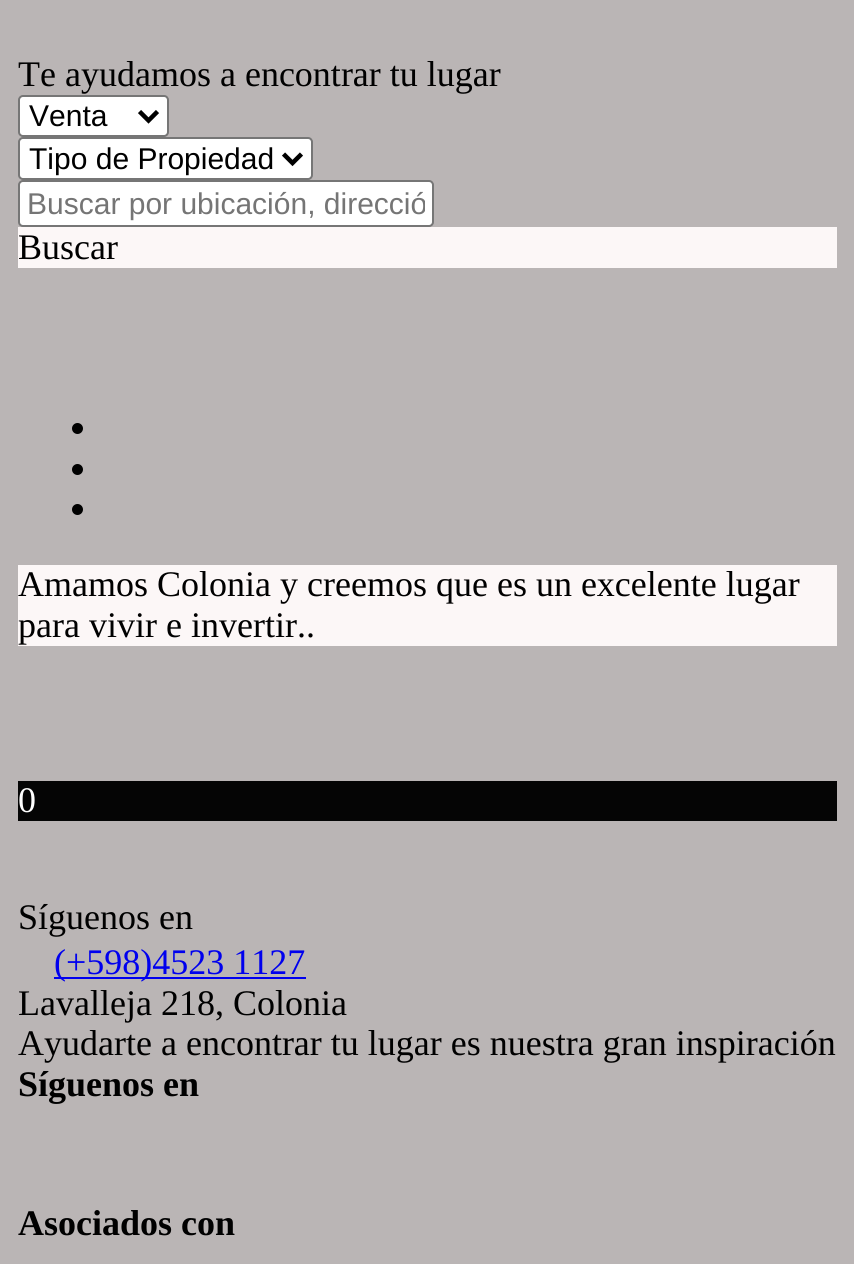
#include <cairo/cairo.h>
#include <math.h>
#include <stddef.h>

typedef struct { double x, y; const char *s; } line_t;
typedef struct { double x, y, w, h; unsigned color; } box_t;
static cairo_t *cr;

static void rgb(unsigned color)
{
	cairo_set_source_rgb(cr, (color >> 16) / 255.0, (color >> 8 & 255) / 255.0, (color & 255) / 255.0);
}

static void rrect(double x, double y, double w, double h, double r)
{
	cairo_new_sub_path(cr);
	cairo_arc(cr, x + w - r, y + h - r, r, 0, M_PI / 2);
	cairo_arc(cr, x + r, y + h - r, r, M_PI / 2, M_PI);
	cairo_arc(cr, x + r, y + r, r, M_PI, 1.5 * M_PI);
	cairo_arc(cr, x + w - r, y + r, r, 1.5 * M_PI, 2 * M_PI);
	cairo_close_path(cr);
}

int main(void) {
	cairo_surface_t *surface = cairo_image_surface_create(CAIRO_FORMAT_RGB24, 854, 1264);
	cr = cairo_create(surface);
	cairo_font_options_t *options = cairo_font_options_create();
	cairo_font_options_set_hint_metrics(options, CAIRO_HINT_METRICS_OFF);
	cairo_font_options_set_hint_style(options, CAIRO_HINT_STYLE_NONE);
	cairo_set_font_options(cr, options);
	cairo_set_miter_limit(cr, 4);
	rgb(0xbab5b5);
	cairo_paint(cr);
	rgb(0xffffff);
	rrect(19, 96, 149, 40, 4);
	cairo_fill_preserve(cr);
	rgb(0x767676);
	cairo_stroke(cr);
	cairo_new_path(cr);
	cairo_move_to(cr, 139.5, 111.5);
	cairo_line_to(cr, 148.5, 120.5);
	cairo_line_to(cr, 157.5, 111.5);
	rgb(0x000000);
	cairo_set_line_width(cr, 4.5);
	cairo_stroke(cr);
	rgb(0xffffff);
	rrect(19, 138, 293, 41, 4);
	cairo_fill_preserve(cr);
	rgb(0x767676);
	cairo_set_line_width(cr, 2);
	cairo_stroke(cr);
	cairo_new_path(cr);
	cairo_move_to(cr, 283.5, 154);
	cairo_line_to(cr, 292.5, 163);
	cairo_line_to(cr, 301.5, 154);
	rgb(0x000000);
	cairo_set_line_width(cr, 4.5);
	cairo_stroke(cr);
	rgb(0xffffff);
	rrect(19, 181, 414, 45, 4);
	cairo_fill_preserve(cr);
	rgb(0x767676);
	cairo_set_line_width(cr, 2);
	cairo_stroke(cr);
	rgb(0xfcf7f7);
	cairo_rectangle(cr, 18, 227, 819, 41);
	cairo_fill(cr);
	rgb(0x000000);
	cairo_arc(cr, 77.5, 428.5, 5.5, 0, 2 * M_PI);
	cairo_fill(cr);
	cairo_arc(cr, 77.5, 469.5, 5.5, 0, 2 * M_PI);
	cairo_fill(cr);
	cairo_arc(cr, 77.5, 509.5, 5.5, 0, 2 * M_PI);
	cairo_fill(cr);
	{
		static const box_t items[] = {
			{18, 565, 819, 81, 0xfcf7f7},
			{18, 781, 819, 40, 0x050505},
			{54, 977, 252, 2, 0x0000ee},
		};
		for (size_t i = 0; i < sizeof items / sizeof *items; i++) {
			rgb(items[i].color);
			cairo_rectangle(cr, items[i].x, items[i].y, items[i].w, items[i].h);
			cairo_fill(cr);
		}
	}
	cairo_select_font_face(cr, "Liberation Serif", CAIRO_FONT_SLANT_NORMAL, CAIRO_FONT_WEIGHT_NORMAL);
	cairo_set_font_size(cr, 36);
	rgb(0x000000);
	cairo_move_to(cr, 18, 86);
	cairo_show_text(cr, "Te ayudamos a encontrar tu lugar");
	cairo_select_font_face(cr, "Liberation Sans", CAIRO_FONT_SLANT_NORMAL, CAIRO_FONT_WEIGHT_NORMAL);
	cairo_set_font_size(cr, 30);
	cairo_move_to(cr, 29, 126);
	cairo_show_text(cr, "Venta");
	cairo_move_to(cr, 29, 169);
	cairo_show_text(cr, "Tipo de Propiedad");
	cairo_save(cr);
	cairo_rectangle(cr, 27, 187, 398, 34);
	cairo_clip(cr);
	rgb(0x757575);
	cairo_move_to(cr, 27, 214);
	cairo_show_text(cr, "Buscar por ubicación, direcció");
	cairo_restore(cr);
	cairo_select_font_face(cr, "Liberation Serif", CAIRO_FONT_SLANT_NORMAL, CAIRO_FONT_WEIGHT_NORMAL);
	cairo_set_font_size(cr, 36);
	{
		static const line_t items[] = {
			{18, 259, "Buscar"},
			{18, 596, "Amamos Colonia y creemos que es un excelente lugar"},
			{18, 637, "para vivir e invertir.."},
		};
		for (size_t i = 0; i < sizeof items / sizeof *items; i++) {
			cairo_move_to(cr, items[i].x, items[i].y);
			cairo_show_text(cr, items[i].s);
		}
	}
	rgb(0xffffff);
	cairo_move_to(cr, 18, 812);
	cairo_show_text(cr, "0");
	rgb(0x000000);
	cairo_move_to(cr, 18, 929);
	cairo_show_text(cr, "Síguenos en");
	rgb(0x0000ee);
	cairo_move_to(cr, 54, 974);
	cairo_show_text(cr, "(+598)4523 1127");
	rgb(0x000000);
	cairo_move_to(cr, 18, 1015);
	cairo_show_text(cr, "Lavalleja 218, Colonia");
	cairo_move_to(cr, 18, 1055);
	cairo_show_text(cr, "Ayudarte a encontrar tu lugar es nuestra gran inspiración");
	cairo_select_font_face(cr, "Liberation Serif", CAIRO_FONT_SLANT_NORMAL, CAIRO_FONT_WEIGHT_BOLD);
	cairo_move_to(cr, 18, 1096);
	cairo_show_text(cr, "Síguenos en");
	cairo_move_to(cr, 18, 1235);
	cairo_show_text(cr, "Asociados con");
	cairo_surface_write_to_png(surface, "page.png");
	cairo_font_options_destroy(options);
	cairo_destroy(cr);
	cairo_surface_destroy(surface);
	return 0;
}
